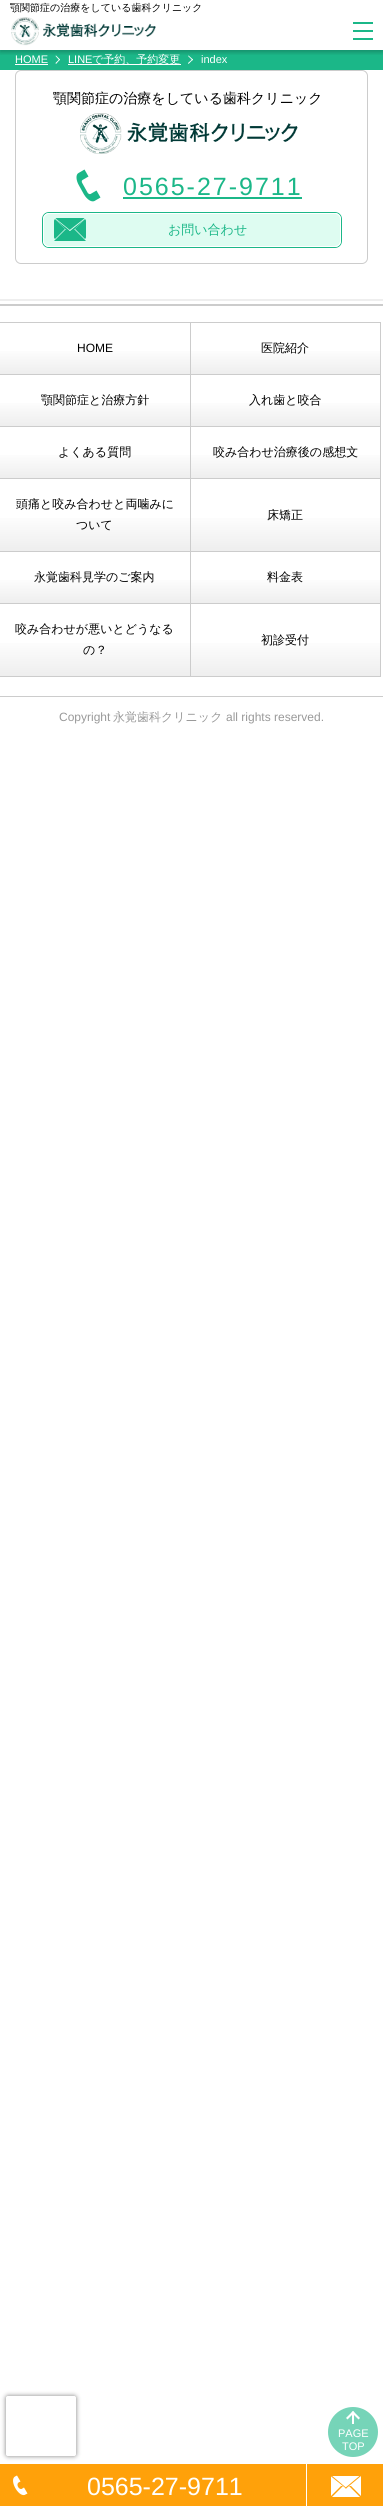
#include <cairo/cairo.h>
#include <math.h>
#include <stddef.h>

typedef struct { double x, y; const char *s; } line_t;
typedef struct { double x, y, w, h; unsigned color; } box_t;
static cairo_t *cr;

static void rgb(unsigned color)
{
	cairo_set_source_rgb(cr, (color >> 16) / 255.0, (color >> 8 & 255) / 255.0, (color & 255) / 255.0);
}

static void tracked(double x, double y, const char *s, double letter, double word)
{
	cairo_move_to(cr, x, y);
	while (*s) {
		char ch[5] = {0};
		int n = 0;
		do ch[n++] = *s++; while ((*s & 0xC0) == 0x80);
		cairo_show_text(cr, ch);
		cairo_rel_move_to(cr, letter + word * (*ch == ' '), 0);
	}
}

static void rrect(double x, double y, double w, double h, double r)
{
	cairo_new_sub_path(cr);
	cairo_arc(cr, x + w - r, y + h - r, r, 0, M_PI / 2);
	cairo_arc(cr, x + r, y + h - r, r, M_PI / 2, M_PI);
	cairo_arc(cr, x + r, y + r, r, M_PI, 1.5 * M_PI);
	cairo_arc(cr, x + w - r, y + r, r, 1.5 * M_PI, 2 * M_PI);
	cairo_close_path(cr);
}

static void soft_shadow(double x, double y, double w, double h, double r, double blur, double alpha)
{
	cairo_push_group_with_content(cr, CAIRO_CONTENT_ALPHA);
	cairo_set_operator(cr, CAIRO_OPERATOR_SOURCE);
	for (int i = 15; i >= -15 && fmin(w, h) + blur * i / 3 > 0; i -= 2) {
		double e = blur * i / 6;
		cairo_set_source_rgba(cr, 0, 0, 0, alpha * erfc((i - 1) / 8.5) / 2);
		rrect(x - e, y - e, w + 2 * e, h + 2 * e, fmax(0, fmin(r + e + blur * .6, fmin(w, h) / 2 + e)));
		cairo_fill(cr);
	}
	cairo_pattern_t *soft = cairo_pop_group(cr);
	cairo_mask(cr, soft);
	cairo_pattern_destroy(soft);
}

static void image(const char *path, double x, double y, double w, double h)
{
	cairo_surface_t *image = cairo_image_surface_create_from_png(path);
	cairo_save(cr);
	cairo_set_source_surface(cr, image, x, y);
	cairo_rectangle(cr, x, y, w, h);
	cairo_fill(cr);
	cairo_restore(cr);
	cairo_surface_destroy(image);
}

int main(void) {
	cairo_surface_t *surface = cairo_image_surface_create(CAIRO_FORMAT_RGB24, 383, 2506);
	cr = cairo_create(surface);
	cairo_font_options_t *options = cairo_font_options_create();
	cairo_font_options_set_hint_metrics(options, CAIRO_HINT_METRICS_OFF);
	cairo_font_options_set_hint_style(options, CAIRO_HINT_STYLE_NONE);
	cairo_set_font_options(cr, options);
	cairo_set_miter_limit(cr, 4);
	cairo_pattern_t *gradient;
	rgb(0xffffff);
	cairo_paint(cr);
	rgb(0x1bb788);
	cairo_rectangle(cr, 0, 50, 383, 20);
	cairo_fill(cr);
	rgb(0xffffff);
	cairo_new_path(cr);
	cairo_move_to(cr, 56, 55.5);
	cairo_line_to(cr, 60, 59.5);
	cairo_line_to(cr, 59.5, 60.5);
	cairo_line_to(cr, 55.5, 56);
	cairo_close_path(cr);
	cairo_fill(cr);
	cairo_new_path(cr);
	cairo_move_to(cr, 59.5, 59);
	cairo_line_to(cr, 60, 59.5);
	cairo_line_to(cr, 56, 64);
	cairo_line_to(cr, 55.5, 63);
	cairo_close_path(cr);
	cairo_fill(cr);
	cairo_new_path(cr);
	cairo_move_to(cr, 188.5, 55.5);
	cairo_line_to(cr, 193, 59.5);
	cairo_line_to(cr, 192.5, 60.5);
	cairo_line_to(cr, 188, 56);
	cairo_close_path(cr);
	cairo_fill(cr);
	cairo_new_path(cr);
	cairo_move_to(cr, 192.5, 59);
	cairo_line_to(cr, 193, 59.5);
	cairo_line_to(cr, 188.5, 64);
	cairo_line_to(cr, 188, 63);
	cairo_close_path(cr);
	cairo_fill(cr);
	cairo_save(cr);
	cairo_rectangle(cr, 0, 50, 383, 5);
	cairo_clip(cr);
	rgb(0x080103);
	soft_shadow(0, 2, 383, 50, 0, 2.5, 0.25);
	cairo_restore(cr);
	{
		static const box_t items[] = {
			{353, 30, 20, 2, 0x1bb788},
			{353, 22, 20, 2, 0x1bb788},
			{353, 38, 20, 2, 0x1bb788},
		};
		for (size_t i = 0; i < sizeof items / sizeof *items; i++) {
			rgb(items[i].color);
			cairo_rectangle(cr, items[i].x, items[i].y, items[i].w, items[i].h);
			cairo_fill(cr);
		}
	}
	image("img/1.png", 11, 17, 145, 29);
	rgb(0xffa10a);
	cairo_rectangle(cr, 0, 2464, 306, 42);
	cairo_fill(cr);
	rgb(0xffffff);
	cairo_set_fill_rule(cr, CAIRO_FILL_RULE_EVEN_ODD);
	cairo_new_path(cr);
	cairo_move_to(cr, 15, 2476.5);
	cairo_line_to(cr, 17, 2475.5);
	cairo_line_to(cr, 27.5, 2493.5);
	cairo_line_to(cr, 24.5, 2495);
	cairo_curve_to(cr, 18, 2496.5, 9, 2480, 15, 2476.5);
	cairo_close_path(cr);
	cairo_move_to(cr, 18.5, 2482.5);
	cairo_line_to(cr, 20.5, 2481.5);
	cairo_line_to(cr, 24, 2487.5);
	cairo_line_to(cr, 21.5, 2489);
	cairo_curve_to(cr, 18.5, 2489.5, 16, 2484.5, 18.5, 2482.5);
	cairo_close_path(cr);
	cairo_fill(cr);
	rgb(0xffa10a);
	cairo_rectangle(cr, 307, 2464, 76, 42);
	cairo_fill(cr);
	rgb(0xffffff);
	cairo_rectangle(cr, 331, 2476, 30, 10);
	cairo_fill(cr);
	cairo_set_fill_rule(cr, CAIRO_FILL_RULE_WINDING);
	cairo_new_path(cr);
	cairo_move_to(cr, 361, 2476);
	cairo_line_to(cr, 361, 2496);
	cairo_line_to(cr, 351, 2486);
	cairo_close_path(cr);
	cairo_move_to(cr, 331, 2496);
	cairo_line_to(cr, 331, 2476);
	cairo_line_to(cr, 341, 2486);
	cairo_close_path(cr);
	cairo_fill(cr);
	cairo_new_path(cr);
	cairo_move_to(cr, 360, 2497);
	cairo_line_to(cr, 332, 2497);
	cairo_line_to(cr, 346, 2483);
	cairo_close_path(cr);
	cairo_fill(cr);
	rgb(0xffa10a);
	cairo_new_path(cr);
	cairo_move_to(cr, 360, 2475.5);
	cairo_line_to(cr, 361, 2476);
	cairo_line_to(cr, 346, 2488.5);
	cairo_line_to(cr, 345, 2488);
	cairo_close_path(cr);
	cairo_fill(cr);
	cairo_new_path(cr);
	cairo_move_to(cr, 331, 2475);
	cairo_line_to(cr, 346.5, 2488);
	cairo_line_to(cr, 346, 2488.5);
	cairo_line_to(cr, 330.5, 2476);
	cairo_close_path(cr);
	cairo_fill(cr);
	rgb(0xffffff);
	cairo_rectangle(cr, 15, 64, 33, 1);
	cairo_fill(cr);
	cairo_rectangle(cr, 68, 64, 113, 1);
	cairo_fill(cr);
	rrect(15.5, 70.5, 352, 193, 5.5);
	rgb(0xcccccc);
	cairo_set_line_width(cr, 1);
	cairo_stroke(cr);
	image("img/2.png", 80, 113, 218, 41);
	rgb(0x1bb788);
	cairo_set_fill_rule(cr, CAIRO_FILL_RULE_EVEN_ODD);
	cairo_new_path(cr);
	cairo_move_to(cr, 78.5, 173);
	cairo_line_to(cr, 84.5, 169.5);
	cairo_line_to(cr, 100.5, 197.5);
	cairo_line_to(cr, 94.5, 201);
	cairo_curve_to(cr, 91.5, 202.5, 87, 199.5, 84, 194.5);
	cairo_line_to(cr, 79, 185.5);
	cairo_curve_to(cr, 76, 180.5, 75.5, 174.5, 78.5, 173);
	cairo_close_path(cr);
	cairo_move_to(cr, 82.5, 180);
	cairo_line_to(cr, 88.5, 176.5);
	cairo_line_to(cr, 96.5, 190.5);
	cairo_line_to(cr, 90.5, 194);
	cairo_curve_to(cr, 89.5, 194.5, 88, 193.5, 87.5, 192.5);
	cairo_line_to(cr, 82.5, 183.5);
	cairo_curve_to(cr, 81.5, 182, 81.5, 180.5, 82.5, 180);
	cairo_close_path(cr);
	cairo_fill(cr);
	cairo_rectangle(cr, 123, 197, 179, 2);
	cairo_fill(cr);
	rrect(42.5, 212.5, 299, 35, 6.5);
	cairo_stroke(cr);
	rgb(0xdefcf1);
	rrect(43.5, 213.5, 297, 33, 5.5);
	cairo_fill_preserve(cr);
	rgb(0xffffff);
	cairo_stroke(cr);
	rgb(0x1bb788);
	cairo_set_fill_rule(cr, CAIRO_FILL_RULE_WINDING);
	cairo_new_path(cr);
	cairo_move_to(cr, 57, 218);
	cairo_curve_to(cr, 56, 218, 55.5, 218.5, 55, 219);
	cairo_line_to(cr, 65, 229);
	cairo_line_to(cr, 75, 229);
	cairo_line_to(cr, 85, 219);
	cairo_curve_to(cr, 84.5, 218.5, 84, 218, 83, 218);
	cairo_close_path(cr);
	cairo_fill(cr);
	cairo_new_path(cr);
	cairo_move_to(cr, 86, 237);
	cairo_line_to(cr, 86, 221);
	cairo_curve_to(cr, 86, 220, 85.5, 219.5, 85, 219);
	cairo_line_to(cr, 75, 229);
	cairo_line_to(cr, 85, 239);
	cairo_curve_to(cr, 85.5, 238.5, 86, 238, 86, 237);
	cairo_close_path(cr);
	cairo_move_to(cr, 65, 229);
	cairo_line_to(cr, 55, 219);
	cairo_curve_to(cr, 54.5, 219.5, 54, 220, 54, 221);
	cairo_line_to(cr, 54, 237);
	cairo_curve_to(cr, 54, 238, 54.5, 238.5, 55, 239);
	cairo_close_path(cr);
	cairo_fill(cr);
	cairo_new_path(cr);
	cairo_move_to(cr, 86, 241);
	cairo_line_to(cr, 54, 241);
	cairo_line_to(cr, 70, 225);
	cairo_close_path(cr);
	cairo_fill(cr);
	rgb(0xdefcf1);
	cairo_new_path(cr);
	cairo_move_to(cr, 87.5, 216);
	cairo_line_to(cr, 88, 216.5);
	cairo_line_to(cr, 70, 231);
	cairo_line_to(cr, 69, 230.5);
	cairo_close_path(cr);
	cairo_fill(cr);
	cairo_new_path(cr);
	cairo_move_to(cr, 52.5, 216);
	cairo_line_to(cr, 70.5, 230.5);
	cairo_line_to(cr, 70, 231);
	cairo_line_to(cr, 52, 216.5);
	cairo_close_path(cr);
	cairo_fill(cr);
	rgb(0xeeeeee);
	cairo_rectangle(cr, 0, 299, 383, 2);
	cairo_fill(cr);
	rgb(0xcccccc);
	cairo_rectangle(cr, 0, 304, 383, 2);
	cairo_fill(cr);
	cairo_rectangle(cr, -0.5, 322.5, 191, 52);
	cairo_stroke(cr);
	gradient = cairo_pattern_create_linear(95, 323, 95, 374);
	cairo_pattern_add_color_stop_rgba(gradient, 0.47, 1, 1, 1, 1);
	cairo_pattern_add_color_stop_rgba(gradient, 1, 0.933, 0.933, 0.933, 1);
	cairo_set_source(cr, gradient);
	cairo_pattern_destroy(gradient);
	cairo_rectangle(cr, 0, 351, 190, 23);
	cairo_fill(cr);
	cairo_rectangle(cr, 190.5, 322.5, 190, 52);
	rgb(0xcccccc);
	cairo_stroke(cr);
	gradient = cairo_pattern_create_linear(286, 323, 286, 374);
	cairo_pattern_add_color_stop_rgba(gradient, 0.47, 1, 1, 1, 1);
	cairo_pattern_add_color_stop_rgba(gradient, 1, 0.933, 0.933, 0.933, 1);
	cairo_set_source(cr, gradient);
	cairo_pattern_destroy(gradient);
	cairo_rectangle(cr, 191, 351, 189, 23);
	cairo_fill(cr);
	cairo_rectangle(cr, -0.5, 374.5, 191, 52);
	rgb(0xcccccc);
	cairo_stroke(cr);
	gradient = cairo_pattern_create_linear(95, 375, 95, 426);
	cairo_pattern_add_color_stop_rgba(gradient, 0.47, 1, 1, 1, 1);
	cairo_pattern_add_color_stop_rgba(gradient, 1, 0.933, 0.933, 0.933, 1);
	cairo_set_source(cr, gradient);
	cairo_pattern_destroy(gradient);
	cairo_rectangle(cr, 0, 403, 190, 23);
	cairo_fill(cr);
	cairo_rectangle(cr, 190.5, 374.5, 190, 52);
	rgb(0xcccccc);
	cairo_stroke(cr);
	gradient = cairo_pattern_create_linear(286, 375, 286, 426);
	cairo_pattern_add_color_stop_rgba(gradient, 0.47, 1, 1, 1, 1);
	cairo_pattern_add_color_stop_rgba(gradient, 1, 0.933, 0.933, 0.933, 1);
	cairo_set_source(cr, gradient);
	cairo_pattern_destroy(gradient);
	cairo_rectangle(cr, 191, 403, 189, 23);
	cairo_fill(cr);
	cairo_rectangle(cr, -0.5, 426.5, 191, 52);
	rgb(0xcccccc);
	cairo_stroke(cr);
	gradient = cairo_pattern_create_linear(95, 427, 95, 478);
	cairo_pattern_add_color_stop_rgba(gradient, 0.47, 1, 1, 1, 1);
	cairo_pattern_add_color_stop_rgba(gradient, 1, 0.933, 0.933, 0.933, 1);
	cairo_set_source(cr, gradient);
	cairo_pattern_destroy(gradient);
	cairo_rectangle(cr, 0, 455, 190, 23);
	cairo_fill(cr);
	cairo_rectangle(cr, 190.5, 426.5, 190, 52);
	rgb(0xcccccc);
	cairo_stroke(cr);
	gradient = cairo_pattern_create_linear(286, 427, 286, 478);
	cairo_pattern_add_color_stop_rgba(gradient, 0.47, 1, 1, 1, 1);
	cairo_pattern_add_color_stop_rgba(gradient, 1, 0.933, 0.933, 0.933, 1);
	cairo_set_source(cr, gradient);
	cairo_pattern_destroy(gradient);
	cairo_rectangle(cr, 191, 455, 189, 23);
	cairo_fill(cr);
	cairo_rectangle(cr, -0.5, 478.5, 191, 73);
	rgb(0xcccccc);
	cairo_stroke(cr);
	gradient = cairo_pattern_create_linear(95, 479, 95, 551);
	cairo_pattern_add_color_stop_rgba(gradient, 0.47, 1, 1, 1, 1);
	cairo_pattern_add_color_stop_rgba(gradient, 1, 0.933, 0.933, 0.933, 1);
	cairo_set_source(cr, gradient);
	cairo_pattern_destroy(gradient);
	cairo_rectangle(cr, 0, 518, 190, 33);
	cairo_fill(cr);
	cairo_rectangle(cr, 190.5, 478.5, 190, 73);
	rgb(0xcccccc);
	cairo_stroke(cr);
	gradient = cairo_pattern_create_linear(286, 479, 286, 551);
	cairo_pattern_add_color_stop_rgba(gradient, 0.47, 1, 1, 1, 1);
	cairo_pattern_add_color_stop_rgba(gradient, 1, 0.933, 0.933, 0.933, 1);
	cairo_set_source(cr, gradient);
	cairo_pattern_destroy(gradient);
	cairo_rectangle(cr, 191, 518, 189, 33);
	cairo_fill(cr);
	cairo_rectangle(cr, -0.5, 551.5, 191, 52);
	rgb(0xcccccc);
	cairo_stroke(cr);
	gradient = cairo_pattern_create_linear(95, 552, 95, 603);
	cairo_pattern_add_color_stop_rgba(gradient, 0.47, 1, 1, 1, 1);
	cairo_pattern_add_color_stop_rgba(gradient, 1, 0.933, 0.933, 0.933, 1);
	cairo_set_source(cr, gradient);
	cairo_pattern_destroy(gradient);
	cairo_rectangle(cr, 0, 580, 190, 23);
	cairo_fill(cr);
	cairo_rectangle(cr, 190.5, 551.5, 190, 52);
	rgb(0xcccccc);
	cairo_stroke(cr);
	gradient = cairo_pattern_create_linear(286, 552, 286, 603);
	cairo_pattern_add_color_stop_rgba(gradient, 0.47, 1, 1, 1, 1);
	cairo_pattern_add_color_stop_rgba(gradient, 1, 0.933, 0.933, 0.933, 1);
	cairo_set_source(cr, gradient);
	cairo_pattern_destroy(gradient);
	cairo_rectangle(cr, 191, 580, 189, 23);
	cairo_fill(cr);
	cairo_rectangle(cr, -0.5, 603.5, 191, 73);
	rgb(0xcccccc);
	cairo_stroke(cr);
	gradient = cairo_pattern_create_linear(95, 604, 95, 676);
	cairo_pattern_add_color_stop_rgba(gradient, 0.47, 1, 1, 1, 1);
	cairo_pattern_add_color_stop_rgba(gradient, 1, 0.933, 0.933, 0.933, 1);
	cairo_set_source(cr, gradient);
	cairo_pattern_destroy(gradient);
	cairo_rectangle(cr, 0, 643, 190, 33);
	cairo_fill(cr);
	cairo_rectangle(cr, 190.5, 603.5, 190, 73);
	rgb(0xcccccc);
	cairo_stroke(cr);
	gradient = cairo_pattern_create_linear(286, 604, 286, 676);
	cairo_pattern_add_color_stop_rgba(gradient, 0.47, 1, 1, 1, 1);
	cairo_pattern_add_color_stop_rgba(gradient, 1, 0.933, 0.933, 0.933, 1);
	cairo_set_source(cr, gradient);
	cairo_pattern_destroy(gradient);
	cairo_rectangle(cr, 191, 643, 189, 33);
	cairo_fill(cr);
	rgb(0xcccccc);
	cairo_rectangle(cr, 0, 696, 383, 1);
	cairo_fill(cr);
	rgb(0x76d4b8);
	cairo_arc(cr, 353, 2432, 25, 0, 2 * M_PI);
	cairo_fill(cr);
	rgb(0xffffff);
	cairo_new_path(cr);
	cairo_move_to(cr, 346, 2418);
	cairo_line_to(cr, 353, 2411);
	cairo_line_to(cr, 354.5, 2412.5);
	cairo_line_to(cr, 347.5, 2419.5);
	cairo_close_path(cr);
	cairo_fill(cr);
	cairo_new_path(cr);
	cairo_move_to(cr, 351.5, 2412.5);
	cairo_line_to(cr, 353, 2411);
	cairo_line_to(cr, 360, 2418);
	cairo_line_to(cr, 358.5, 2419.5);
	cairo_close_path(cr);
	cairo_fill(cr);
	cairo_rectangle(cr, 352, 2412, 2, 12);
	cairo_fill(cr);
	cairo_save(cr);
	cairo_set_fill_rule(cr, CAIRO_FILL_RULE_EVEN_ODD);
	cairo_new_path(cr);
	cairo_move_to(cr, 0, 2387);
	cairo_line_to(cr, 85, 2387);
	cairo_line_to(cr, 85, 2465);
	cairo_line_to(cr, 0, 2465);
	cairo_close_path(cr);
	cairo_move_to(cr, 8, 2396);
	cairo_line_to(cr, 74, 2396);
	cairo_curve_to(cr, 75, 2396, 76, 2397, 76, 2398);
	cairo_line_to(cr, 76, 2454);
	cairo_curve_to(cr, 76, 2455, 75, 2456, 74, 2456);
	cairo_line_to(cr, 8, 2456);
	cairo_curve_to(cr, 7, 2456, 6, 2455, 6, 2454);
	cairo_line_to(cr, 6, 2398);
	cairo_curve_to(cr, 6, 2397, 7, 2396, 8, 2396);
	cairo_close_path(cr);
	cairo_clip(cr);
	rgb(0x808080);
	soft_shadow(6, 2396, 70, 60, 2, 2.5, 1);
	cairo_restore(cr);
	cairo_select_font_face(cr, "WenQuanYi Zen Hei Medium", CAIRO_FONT_SLANT_NORMAL, CAIRO_FONT_WEIGHT_NORMAL);
	cairo_set_font_size(cr, 10);
	rgb(0x000000);
	cairo_move_to(cr, 10, 11);
	cairo_show_text(cr, "顎関節症の治療をしている歯科クリニック");
	cairo_select_font_face(cr, "Liberation Sans", CAIRO_FONT_SLANT_NORMAL, CAIRO_FONT_WEIGHT_NORMAL);
	cairo_set_font_size(cr, 25);
	rgb(0xffffff);
	cairo_move_to(cr, 87, 2495);
	cairo_show_text(cr, "0565-27-9711");
	cairo_set_font_size(cr, 11);
	cairo_move_to(cr, 15, 63);
	cairo_show_text(cr, "HOME");
	cairo_move_to(cr, 68, 63);
	cairo_show_text(cr, "LINE");
	cairo_select_font_face(cr, "WenQuanYi Zen Hei Medium", CAIRO_FONT_SLANT_NORMAL, CAIRO_FONT_WEIGHT_NORMAL);
	cairo_move_to(cr, 92, 63);
	cairo_show_text(cr, "で予約、予約変更");
	cairo_select_font_face(cr, "Liberation Sans", CAIRO_FONT_SLANT_NORMAL, CAIRO_FONT_WEIGHT_NORMAL);
	cairo_move_to(cr, 201, 63);
	cairo_show_text(cr, "index");
	cairo_select_font_face(cr, "WenQuanYi Zen Hei Medium", CAIRO_FONT_SLANT_NORMAL, CAIRO_FONT_WEIGHT_NORMAL);
	cairo_set_font_size(cr, 14);
	rgb(0x000000);
	cairo_move_to(cr, 53, 103);
	cairo_show_text(cr, "顎関節症の治療をしている歯科クリニック");
	cairo_select_font_face(cr, "Liberation Sans", CAIRO_FONT_SLANT_NORMAL, CAIRO_FONT_WEIGHT_NORMAL);
	cairo_set_font_size(cr, 25);
	rgb(0x1bb788);
	tracked(123, 195, "0565-27-9711", 2, 0);
	cairo_select_font_face(cr, "WenQuanYi Zen Hei Medium", CAIRO_FONT_SLANT_NORMAL, CAIRO_FONT_WEIGHT_NORMAL);
	cairo_set_font_size(cr, 13);
	cairo_move_to(cr, 168, 234);
	cairo_show_text(cr, "お問い合わせ");
	cairo_select_font_face(cr, "Liberation Sans", CAIRO_FONT_SLANT_NORMAL, CAIRO_FONT_WEIGHT_NORMAL);
	cairo_set_font_size(cr, 12);
	rgb(0x000000);
	cairo_move_to(cr, 77, 352);
	cairo_show_text(cr, "HOME");
	cairo_select_font_face(cr, "WenQuanYi Zen Hei Medium", CAIRO_FONT_SLANT_NORMAL, CAIRO_FONT_WEIGHT_NORMAL);
	{
		static const line_t items[] = {
			{261, 352, "医院紹介"},
			{41, 404, "顎関節症と治療方針"},
			{249, 404, "入れ歯と咬合"},
			{58, 456, "よくある質問"},
			{213, 456, "咬み合わせ治療後の感想文"},
			{16, 508, "頭痛と咬み合わせと両噛みに"},
			{76, 529, "ついて"},
			{267, 519, "床矯正"},
			{34, 581, "永覚歯科見学のご案内"},
			{267, 581, "料金表"},
			{15, 633, "咬み合わせが悪いとどうなる"},
			{83, 654, "の？"},
			{261, 644, "初診受付"},
		};
		for (size_t i = 0; i < sizeof items / sizeof *items; i++) {
			cairo_move_to(cr, items[i].x, items[i].y);
			cairo_show_text(cr, items[i].s);
		}
	}
	cairo_select_font_face(cr, "Liberation Sans", CAIRO_FONT_SLANT_NORMAL, CAIRO_FONT_WEIGHT_NORMAL);
	rgb(0x999999);
	cairo_move_to(cr, 59, 721);
	cairo_show_text(cr, "Copyright");
	cairo_select_font_face(cr, "WenQuanYi Zen Hei Medium", CAIRO_FONT_SLANT_NORMAL, CAIRO_FONT_WEIGHT_NORMAL);
	cairo_move_to(cr, 113, 721);
	cairo_show_text(cr, "永覚歯科クリニック");
	cairo_select_font_face(cr, "Liberation Sans", CAIRO_FONT_SLANT_NORMAL, CAIRO_FONT_WEIGHT_NORMAL);
	cairo_move_to(cr, 226, 721);
	cairo_show_text(cr, "all rights reserved.");
	cairo_set_font_size(cr, 11);
	rgb(0xffffff);
	cairo_move_to(cr, 338, 2437);
	cairo_show_text(cr, "PAGE");
	cairo_move_to(cr, 342, 2450);
	cairo_show_text(cr, "TOP");
	cairo_surface_write_to_png(surface, "page.png");
	cairo_font_options_destroy(options);
	cairo_destroy(cr);
	cairo_surface_destroy(surface);
	return 0;
}
